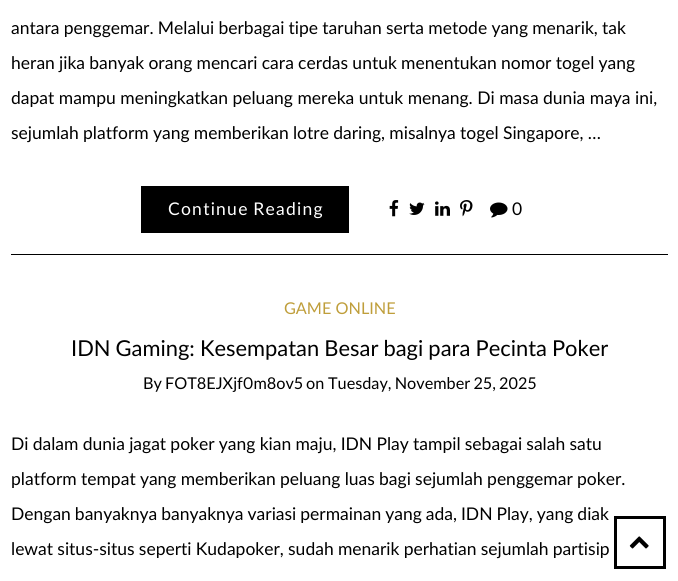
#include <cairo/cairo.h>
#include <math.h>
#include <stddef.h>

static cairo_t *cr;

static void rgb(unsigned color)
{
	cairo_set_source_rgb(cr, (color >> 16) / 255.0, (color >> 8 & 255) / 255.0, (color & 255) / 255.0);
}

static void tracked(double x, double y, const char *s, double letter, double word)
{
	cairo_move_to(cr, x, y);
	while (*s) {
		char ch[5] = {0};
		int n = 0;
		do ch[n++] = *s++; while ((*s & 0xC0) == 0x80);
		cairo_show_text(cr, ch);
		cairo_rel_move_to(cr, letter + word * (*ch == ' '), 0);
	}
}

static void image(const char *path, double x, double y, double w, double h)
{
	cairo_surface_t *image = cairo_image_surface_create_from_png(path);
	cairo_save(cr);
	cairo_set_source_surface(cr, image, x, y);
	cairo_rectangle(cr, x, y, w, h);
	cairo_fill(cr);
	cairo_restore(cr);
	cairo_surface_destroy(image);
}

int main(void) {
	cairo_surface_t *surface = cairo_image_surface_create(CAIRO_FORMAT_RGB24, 678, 581);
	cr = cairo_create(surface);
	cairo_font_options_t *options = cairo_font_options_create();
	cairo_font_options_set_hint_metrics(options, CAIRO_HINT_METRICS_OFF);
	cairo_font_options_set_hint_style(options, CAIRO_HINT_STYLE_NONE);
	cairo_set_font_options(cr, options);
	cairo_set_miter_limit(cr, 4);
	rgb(0xffffff);
	cairo_paint(cr);
	rgb(0x000000);
	cairo_rectangle(cr, 141, 186, 208, 47);
	cairo_fill(cr);
	image("img/1.png", 389, 200, 10, 17);
	image("img/2.png", 409, 202, 16, 13);
	image("img/3.png", 435, 201, 15, 15);
	image("img/4.png", 460, 200, 13, 17);
	image("img/5.png", 490, 202, 18, 16);
	cairo_rectangle(cr, 11, 254, 657, 1);
	cairo_fill(cr);
	cairo_rectangle(cr, 615.5, 517.5, 49, 50);
	cairo_set_line_width(cr, 3);
	cairo_stroke(cr);
	image("img/6.png", 629, 536, 20, 13);
	cairo_select_font_face(cr, "Lato", CAIRO_FONT_SLANT_NORMAL, CAIRO_FONT_WEIGHT_NORMAL);
	cairo_set_font_size(cr, 17.5);
	tracked(11, 34, "antara penggemar. Melalui berbagai tipe taruhan serta metode yang menarik, tak", 0, -0.25);
	tracked(11, 69, "heran jika banyak orang mencari cara cerdas untuk menentukan nomor togel yang", 0, -0.25);
	cairo_move_to(cr, 11, 104);
	cairo_show_text(cr, "dapat mampu meningkatkan peluang mereka untuk menang. Di masa dunia maya ini,");
	tracked(11, 139, "sejumlah platform yang memberikan lotre daring, misalnya togel Singapore, …", 0, -0.25);
	rgb(0xffffff);
	tracked(168, 215, "Continue Reading", 1.25, -1);
	rgb(0x000000);
	cairo_move_to(cr, 512, 215);
	cairo_show_text(cr, "0");
	cairo_set_font_size(cr, 16.25);
	rgb(0xbf9e3b);
	cairo_move_to(cr, 284, 314);
	cairo_show_text(cr, "GAME ONLINE");
	cairo_set_font_size(cr, 21.9);
	rgb(0x000000);
	tracked(71, 356, "IDN Gaming: Kesempatan Besar bagi para Pecinta Poker", 0, -0.5);
	cairo_set_font_size(cr, 16.25);
	cairo_move_to(cr, 143, 389);
	cairo_show_text(cr, "By");
	cairo_select_font_face(cr, "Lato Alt", CAIRO_FONT_SLANT_NORMAL, CAIRO_FONT_WEIGHT_NORMAL);
	cairo_move_to(cr, 165, 389);
	cairo_show_text(cr, "FOT8EJXjf0m8ov5");
	cairo_select_font_face(cr, "Lato", CAIRO_FONT_SLANT_NORMAL, CAIRO_FONT_WEIGHT_NORMAL);
	cairo_move_to(cr, 306, 389);
	cairo_show_text(cr, "on");
	tracked(328, 389, "Tuesday, November 25, 2025", 0, -1);
	cairo_set_font_size(cr, 17.5);
	tracked(11, 450, "Di dalam dunia jagat poker yang kian maju, IDN Play tampil sebagai salah satu", 0, -0.25);
	tracked(11, 485, "platform tempat yang memberikan peluang luas bagi sejumlah penggemar poker.", 0, -0.25);
	tracked(11, 520, "Dengan banyaknya banyaknya variasi permainan yang ada, IDN Play, yang diak", 0, -0.5);
	tracked(11, 555, "lewat situs-situs seperti Kudapoker, sudah menarik perhatian sejumlah partisip", 0, -0.25);
	cairo_surface_write_to_png(surface, "page.png");
	cairo_font_options_destroy(options);
	cairo_destroy(cr);
	cairo_surface_destroy(surface);
	return 0;
}
